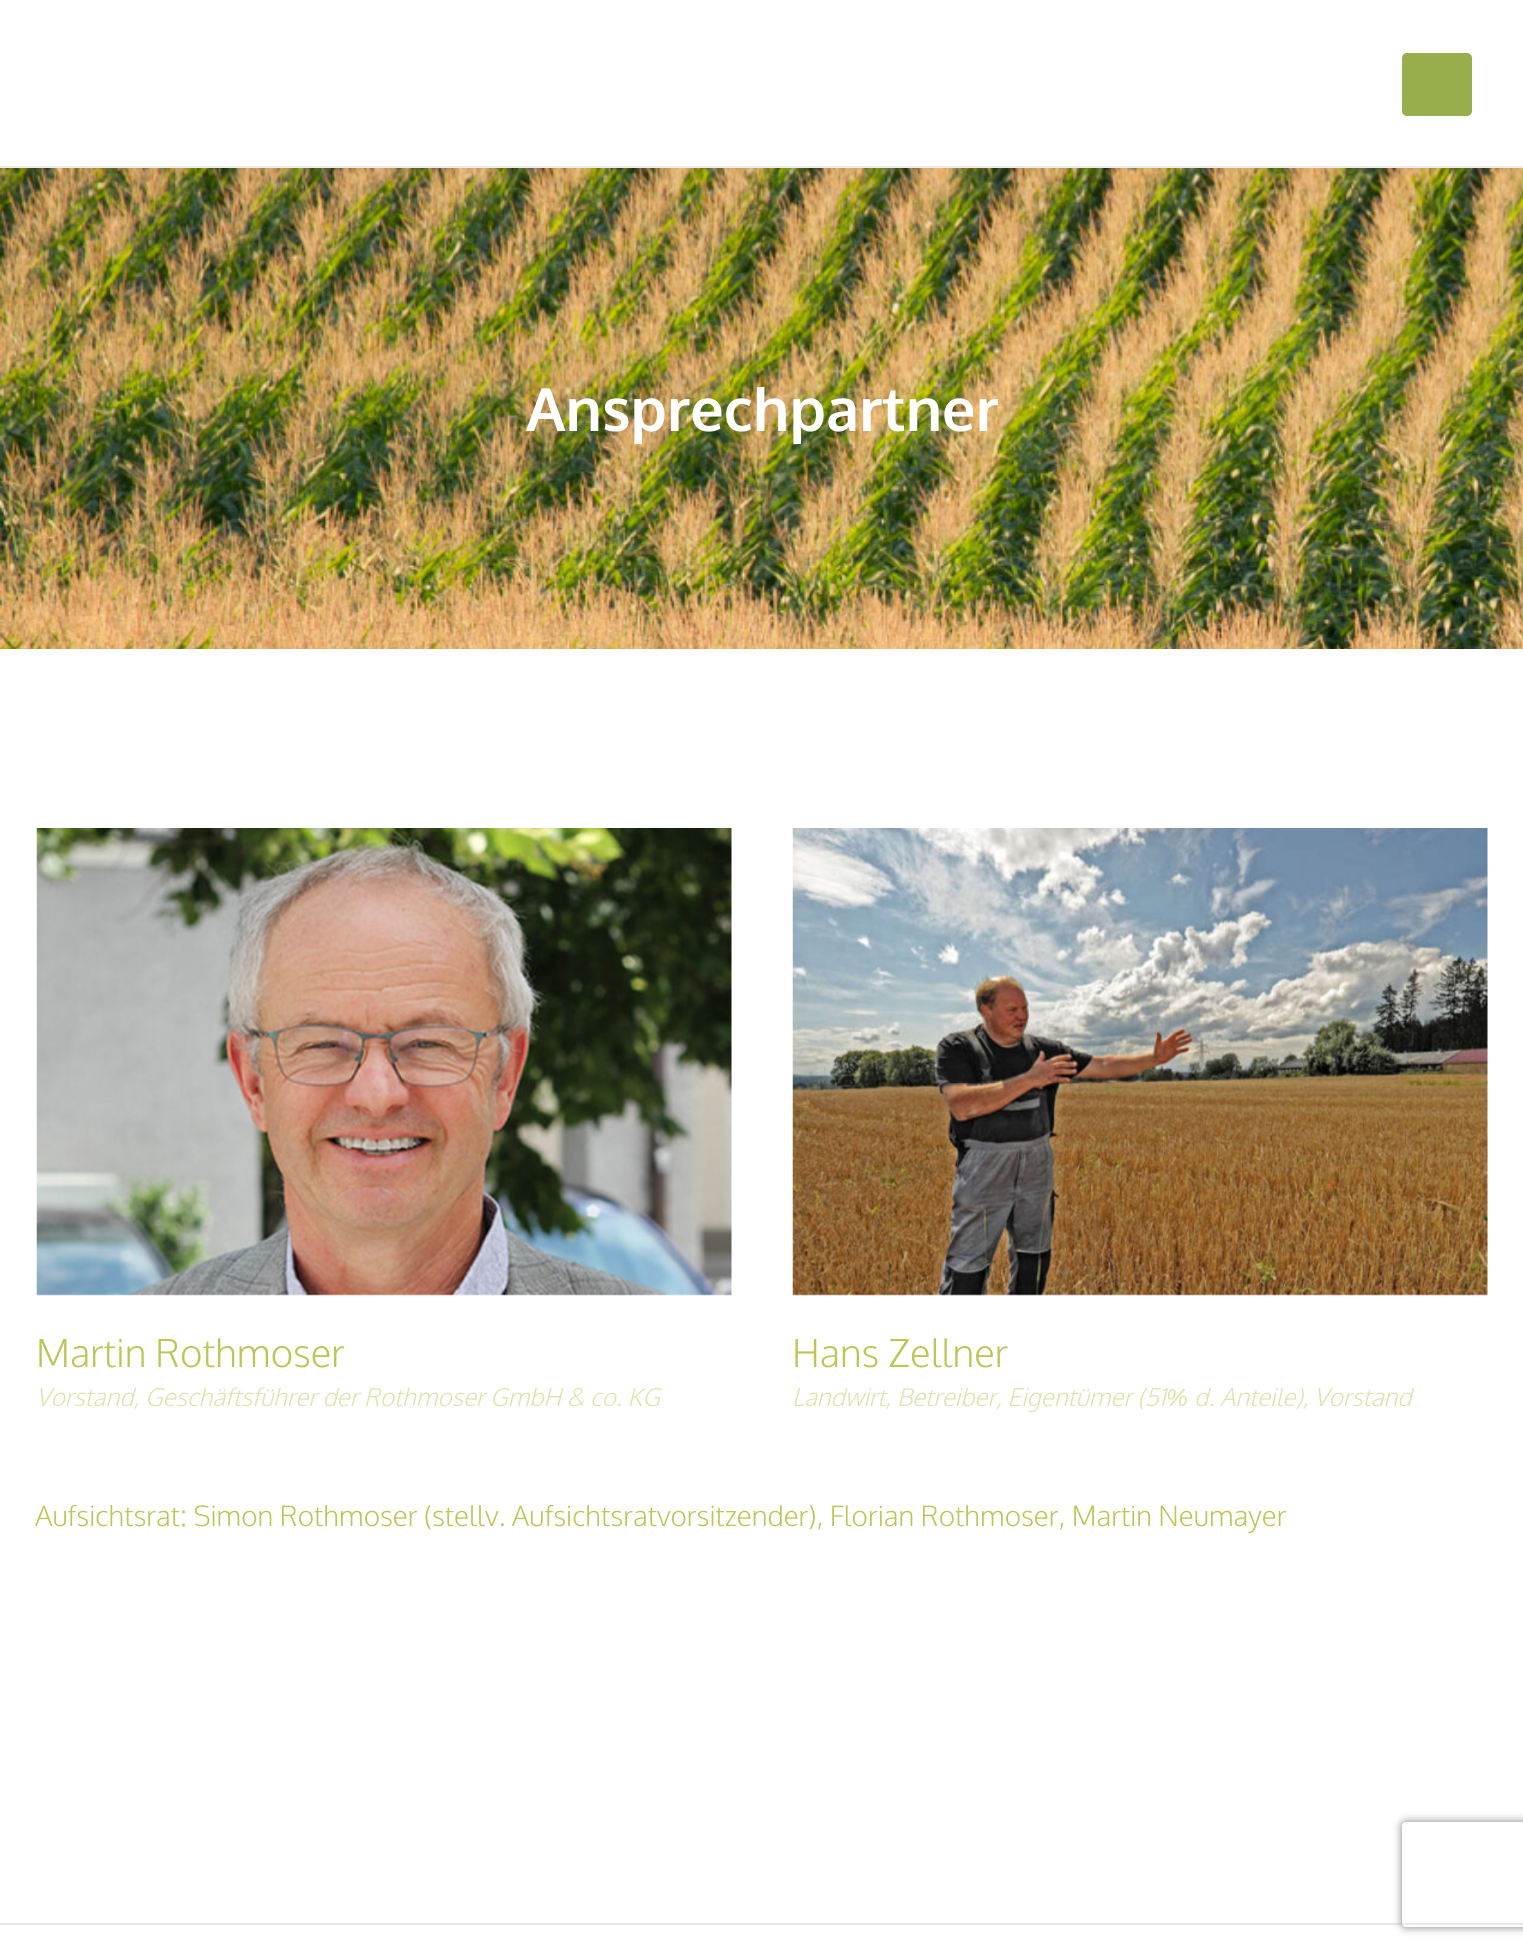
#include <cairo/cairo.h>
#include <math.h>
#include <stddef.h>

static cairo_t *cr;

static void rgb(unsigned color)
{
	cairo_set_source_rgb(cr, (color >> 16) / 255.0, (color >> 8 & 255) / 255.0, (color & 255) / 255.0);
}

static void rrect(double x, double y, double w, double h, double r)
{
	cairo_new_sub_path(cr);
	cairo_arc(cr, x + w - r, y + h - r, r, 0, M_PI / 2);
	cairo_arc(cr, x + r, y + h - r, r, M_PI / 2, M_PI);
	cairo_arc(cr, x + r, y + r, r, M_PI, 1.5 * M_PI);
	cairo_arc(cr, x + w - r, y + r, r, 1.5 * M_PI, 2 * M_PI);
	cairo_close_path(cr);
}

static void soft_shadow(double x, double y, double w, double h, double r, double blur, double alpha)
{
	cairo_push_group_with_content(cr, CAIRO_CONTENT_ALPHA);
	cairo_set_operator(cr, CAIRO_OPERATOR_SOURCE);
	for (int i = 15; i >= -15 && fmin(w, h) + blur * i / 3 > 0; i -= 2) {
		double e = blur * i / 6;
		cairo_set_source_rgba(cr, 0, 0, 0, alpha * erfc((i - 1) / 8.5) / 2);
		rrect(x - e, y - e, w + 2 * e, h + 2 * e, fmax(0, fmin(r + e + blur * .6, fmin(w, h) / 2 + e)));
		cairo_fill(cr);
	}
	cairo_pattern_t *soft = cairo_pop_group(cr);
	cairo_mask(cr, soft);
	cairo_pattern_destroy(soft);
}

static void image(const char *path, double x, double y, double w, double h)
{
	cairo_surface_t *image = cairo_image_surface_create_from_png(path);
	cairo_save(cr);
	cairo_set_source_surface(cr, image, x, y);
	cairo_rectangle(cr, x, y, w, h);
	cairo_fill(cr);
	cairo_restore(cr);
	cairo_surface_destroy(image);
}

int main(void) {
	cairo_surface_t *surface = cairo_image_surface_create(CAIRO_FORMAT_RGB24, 1523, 1951);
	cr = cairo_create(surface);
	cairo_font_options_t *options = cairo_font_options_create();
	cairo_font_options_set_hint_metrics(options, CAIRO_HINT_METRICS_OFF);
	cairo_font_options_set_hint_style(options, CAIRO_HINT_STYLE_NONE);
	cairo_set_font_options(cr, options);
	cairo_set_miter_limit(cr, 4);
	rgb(0xffffff);
	cairo_paint(cr);
	rgb(0xebebeb);
	cairo_rectangle(cr, 0, 166, 1523, 2);
	cairo_fill(cr);
	rgb(0x98ad4c);
	rrect(1402, 53, 70, 63, 5);
	cairo_fill(cr);
	image("img/1.png", 0, 168, 1523, 481);
	image("img/2.png", 36, 828, 696, 468);
	image("img/3.png", 792, 828, 696, 468);
	rgb(0xe5e8ec);
	cairo_rectangle(cr, 0, 1923, 1523, 2);
	cairo_fill(cr);
	cairo_save(cr);
	cairo_set_fill_rule(cr, CAIRO_FILL_RULE_EVEN_ODD);
	cairo_new_path(cr);
	cairo_move_to(cr, 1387, 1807);
	cairo_line_to(cr, 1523, 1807);
	cairo_line_to(cr, 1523, 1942);
	cairo_line_to(cr, 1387, 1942);
	cairo_close_path(cr);
	cairo_move_to(cr, 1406, 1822);
	cairo_line_to(cr, 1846, 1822);
	cairo_curve_to(cr, 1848, 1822, 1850, 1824, 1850, 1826);
	cairo_line_to(cr, 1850, 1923);
	cairo_curve_to(cr, 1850, 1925, 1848, 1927, 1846, 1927);
	cairo_line_to(cr, 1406, 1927);
	cairo_curve_to(cr, 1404, 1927, 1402, 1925, 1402, 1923);
	cairo_line_to(cr, 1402, 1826);
	cairo_curve_to(cr, 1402, 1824, 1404, 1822, 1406, 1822);
	cairo_close_path(cr);
	cairo_clip(cr);
	rgb(0x808080);
	soft_shadow(1402, 1822, 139, 105, 4, 4.5, 1);
	cairo_restore(cr);
	cairo_select_font_face(cr, "Oxygen", CAIRO_FONT_SLANT_NORMAL, CAIRO_FONT_WEIGHT_BOLD);
	cairo_set_font_size(cr, 59.5);
	rgb(0xffffff);
	cairo_move_to(cr, 526, 431);
	cairo_show_text(cr, "Ansprechpartner");
	cairo_select_font_face(cr, "Oxygen Light", CAIRO_FONT_SLANT_NORMAL, CAIRO_FONT_WEIGHT_NORMAL);
	cairo_set_font_size(cr, 38.5);
	rgb(0xbec456);
	cairo_move_to(cr, 36, 1367);
	cairo_show_text(cr, "Martin Rothmoser");
	cairo_select_font_face(cr, "Oxygen Light", CAIRO_FONT_SLANT_ITALIC, CAIRO_FONT_WEIGHT_NORMAL);
	cairo_set_font_size(cr, 24.5);
	rgb(0xdfe2ab);
	cairo_move_to(cr, 36, 1406);
	cairo_show_text(cr, "Vorstand, Geschäftsführer der Rothmoser GmbH & co. KG");
	cairo_select_font_face(cr, "Oxygen Light", CAIRO_FONT_SLANT_NORMAL, CAIRO_FONT_WEIGHT_NORMAL);
	cairo_set_font_size(cr, 38.5);
	rgb(0xbec456);
	cairo_move_to(cr, 792, 1367);
	cairo_show_text(cr, "Hans Zellner");
	cairo_select_font_face(cr, "Oxygen Light", CAIRO_FONT_SLANT_ITALIC, CAIRO_FONT_WEIGHT_NORMAL);
	cairo_set_font_size(cr, 24.5);
	rgb(0xdfe2ab);
	cairo_move_to(cr, 792, 1406);
	cairo_show_text(cr, "Landwirt, Betreiber, Eigentümer (51");
	cairo_select_font_face(cr, "Liberation Sans", CAIRO_FONT_SLANT_ITALIC, CAIRO_FONT_WEIGHT_NORMAL);
	cairo_move_to(cr, 1166, 1406);
	cairo_show_text(cr, "%");
	cairo_select_font_face(cr, "Oxygen Light", CAIRO_FONT_SLANT_ITALIC, CAIRO_FONT_WEIGHT_NORMAL);
	cairo_move_to(cr, 1194, 1406);
	cairo_show_text(cr, "d. Anteile), Vorstand");
	cairo_select_font_face(cr, "Oxygen Light", CAIRO_FONT_SLANT_NORMAL, CAIRO_FONT_WEIGHT_NORMAL);
	cairo_set_font_size(cr, 28);
	rgb(0xbec456);
	cairo_move_to(cr, 35, 1526);
	cairo_show_text(cr, "Aufsichtsrat: Simon Rothmoser (stellv. Aufsichtsratvorsitzender), Florian Rothmoser, Martin Neumayer");
	cairo_surface_write_to_png(surface, "page.png");
	cairo_font_options_destroy(options);
	cairo_destroy(cr);
	cairo_surface_destroy(surface);
	return 0;
}
